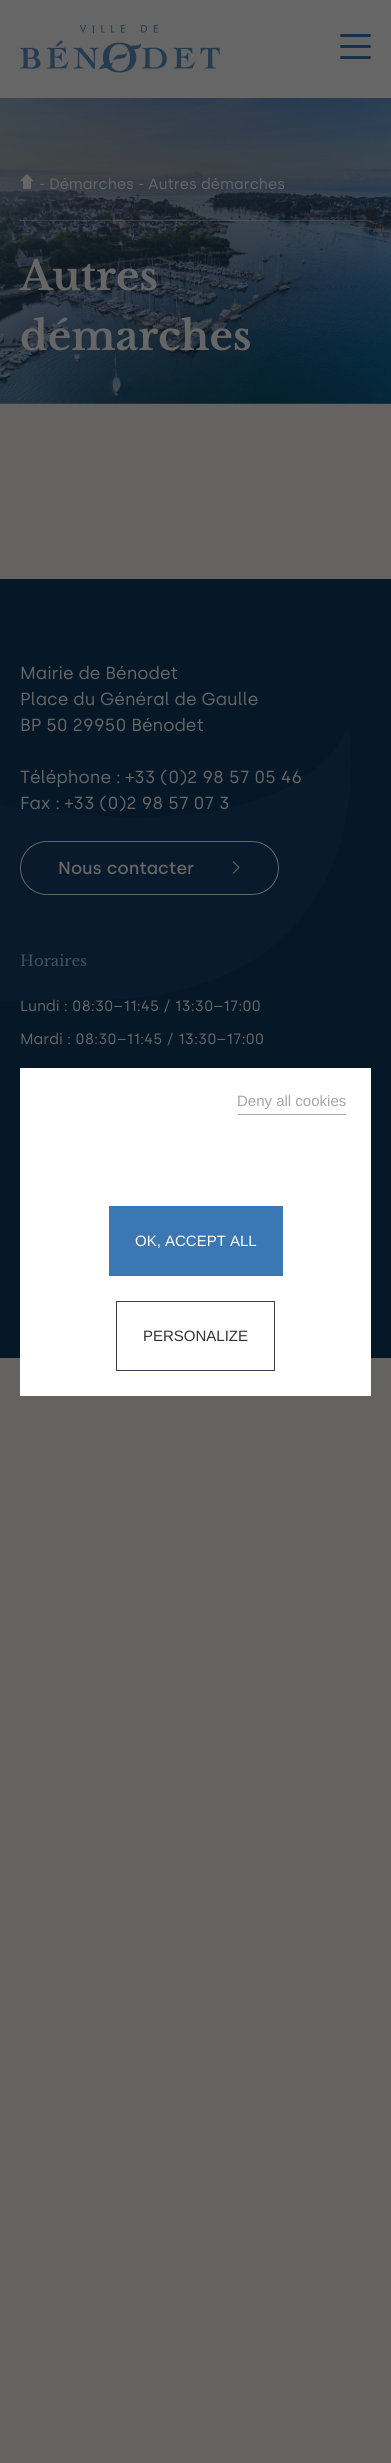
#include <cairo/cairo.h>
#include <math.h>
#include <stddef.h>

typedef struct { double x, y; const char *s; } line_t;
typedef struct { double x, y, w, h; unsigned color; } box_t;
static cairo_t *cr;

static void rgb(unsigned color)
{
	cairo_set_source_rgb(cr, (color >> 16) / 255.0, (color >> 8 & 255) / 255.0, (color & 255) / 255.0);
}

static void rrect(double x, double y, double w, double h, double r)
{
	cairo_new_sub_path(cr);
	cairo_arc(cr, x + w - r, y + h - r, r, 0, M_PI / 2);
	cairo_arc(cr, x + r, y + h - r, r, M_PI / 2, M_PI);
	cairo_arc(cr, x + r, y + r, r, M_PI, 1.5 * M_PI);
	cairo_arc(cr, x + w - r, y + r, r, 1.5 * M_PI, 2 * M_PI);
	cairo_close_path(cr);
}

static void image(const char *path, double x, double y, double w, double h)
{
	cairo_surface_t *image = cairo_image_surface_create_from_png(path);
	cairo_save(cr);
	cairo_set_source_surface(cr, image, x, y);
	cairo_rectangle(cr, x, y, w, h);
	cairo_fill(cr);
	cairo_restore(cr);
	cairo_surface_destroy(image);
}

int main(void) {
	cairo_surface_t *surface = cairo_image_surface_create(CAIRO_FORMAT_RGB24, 391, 2463);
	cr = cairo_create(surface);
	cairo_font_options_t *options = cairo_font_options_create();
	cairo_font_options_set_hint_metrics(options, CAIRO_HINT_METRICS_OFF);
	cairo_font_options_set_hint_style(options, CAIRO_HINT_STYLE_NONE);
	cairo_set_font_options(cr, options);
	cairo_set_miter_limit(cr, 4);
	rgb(0x646361);
	cairo_paint(cr);
	rgb(0x666666);
	cairo_rectangle(cr, 0, 0, 391, 98);
	cairo_fill(cr);
	image("img/1.png", 20, 25, 200, 48);
	rgb(0x183047);
	rrect(340, 34, 31, 3, 1.5);
	cairo_fill(cr);
	rrect(340, 45, 31, 3, 1.5);
	cairo_fill(cr);
	rrect(340, 56, 31, 3, 1.5);
	cairo_fill(cr);
	image("img/2.png", 0, 98, 391, 306);
	image("img/3.png", 20, 174, 14, 15);
	cairo_set_source_rgba(cr, 0.4, 0.4, 0.4, 0.4);
	cairo_rectangle(cr, 20, 220, 351, 1);
	cairo_fill(cr);
	rgb(0x061828);
	cairo_rectangle(cr, 0, 579, 391, 779);
	cairo_fill(cr);
	rgb(0x081a2b);
	cairo_new_path(cr);
	cairo_move_to(cr, -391, 1107);
	cairo_curve_to(cr, -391, 1107, -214, 765, -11, 803);
	cairo_curve_to(cr, 308, 862, 348, 728, 348, 728);
	cairo_curve_to(cr, 348, 728, 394, 1003, 77, 1000);
	cairo_curve_to(cr, -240, 997, -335, 1033, -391, 1107);
	cairo_close_path(cr);
	cairo_fill(cr);
	cairo_new_path(cr);
	cairo_move_to(cr, -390.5, 1107);
	cairo_curve_to(cr, -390.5, 1107, -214.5, 765, -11, 802.5);
	cairo_curve_to(cr, 307.5, 861.5, 348, 728.5, 348, 728.5);
	cairo_curve_to(cr, 348, 728.5, 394.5, 1003, 77.5, 1000);
	cairo_curve_to(cr, -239.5, 997, -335.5, 1032.5, -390.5, 1107);
	cairo_close_path(cr);
	cairo_set_source_rgba(cr, 0.094, 0.188, 0.278, 0.09);
	cairo_set_line_width(cr, 1.3);
	cairo_stroke(cr);
	rrect(20.5, 841.5, 258, 53, 26.5);
	rgb(0x666666);
	cairo_set_line_width(cr, 1);
	cairo_stroke(cr);
	cairo_new_path(cr);
	cairo_move_to(cr, 233, 861.5);
	cairo_line_to(cr, 239, 867.5);
	cairo_line_to(cr, 233, 873.5);
	cairo_stroke(cr);
	{
		static const box_t items[] = {
			{20, 1068, 351, 328, 0xffffff},
			{238, 1114, 108, 1, 0xa6a6a6},
			{109, 1206, 174, 70, 0x3b77b2},
		};
		for (size_t i = 0; i < sizeof items / sizeof *items; i++) {
			rgb(items[i].color);
			cairo_rectangle(cr, items[i].x, items[i].y, items[i].w, items[i].h);
			cairo_fill(cr);
		}
	}
	cairo_rectangle(cr, 116.5, 1301.5, 158, 69);
	rgb(0x373e54);
	cairo_stroke(cr);
	cairo_select_font_face(cr, "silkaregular", CAIRO_FONT_SLANT_NORMAL, CAIRO_FONT_WEIGHT_NORMAL);
	cairo_set_font_size(cr, 15);
	rgb(0x666666);
	cairo_move_to(cr, 39, 189);
	cairo_show_text(cr, "- Démarches - Autres démarches");
	cairo_select_font_face(cr, "Libre Baskerville", CAIRO_FONT_SLANT_NORMAL, CAIRO_FONT_WEIGHT_BOLD);
	cairo_set_font_size(cr, 40);
	cairo_move_to(cr, 20, 290);
	cairo_show_text(cr, "Autres");
	cairo_move_to(cr, 20, 350);
	cairo_show_text(cr, "démarches");
	cairo_select_font_face(cr, "silkaregular", CAIRO_FONT_SLANT_NORMAL, CAIRO_FONT_WEIGHT_NORMAL);
	cairo_set_font_size(cr, 17.5);
	{
		static const line_t items[] = {
			{20, 679, "Mairie de Bénodet"},
			{20, 705, "Place du Général de Gaulle"},
			{20, 731, "BP 50 29950 Bénodet"},
			{20, 783, "Téléphone : +33 (0)2 98 57 05 46"},
			{20, 809, "Fax : +33 (0)2 98 57 07 3"},
		};
		for (size_t i = 0; i < sizeof items / sizeof *items; i++) {
			cairo_move_to(cr, items[i].x, items[i].y);
			cairo_show_text(cr, items[i].s);
		}
	}
	cairo_select_font_face(cr, "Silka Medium", CAIRO_FONT_SLANT_NORMAL, CAIRO_FONT_WEIGHT_NORMAL);
	cairo_move_to(cr, 58, 874);
	cairo_show_text(cr, "Nous contacter");
	cairo_select_font_face(cr, "Libre Baskerville", CAIRO_FONT_SLANT_NORMAL, CAIRO_FONT_WEIGHT_NORMAL);
	cairo_set_font_size(cr, 15);
	rgb(0x425064);
	cairo_move_to(cr, 20, 966);
	cairo_show_text(cr, "Horaires");
	cairo_select_font_face(cr, "silkaregular", CAIRO_FONT_SLANT_NORMAL, CAIRO_FONT_WEIGHT_NORMAL);
	rgb(0x666666);
	cairo_move_to(cr, 20, 1011);
	cairo_show_text(cr, "Lundi : 08:30–11:45 / 13:30–17:00");
	cairo_move_to(cr, 20, 1044);
	cairo_show_text(cr, "Mardi : 08:30–11:45 / 13:30–17:00");
	cairo_select_font_face(cr, "Liberation Sans", CAIRO_FONT_SLANT_NORMAL, CAIRO_FONT_WEIGHT_NORMAL);
	rgb(0xa6a6a6);
	cairo_move_to(cr, 237, 1106);
	cairo_show_text(cr, "Deny all cookies");
	rgb(0xffffff);
	cairo_move_to(cr, 135, 1246);
	cairo_show_text(cr, "OK, ACCEPT ALL");
	rgb(0x333333);
	cairo_move_to(cr, 143, 1341);
	cairo_show_text(cr, "PERSONALIZE");
	cairo_surface_write_to_png(surface, "page.png");
	cairo_font_options_destroy(options);
	cairo_destroy(cr);
	cairo_surface_destroy(surface);
	return 0;
}
